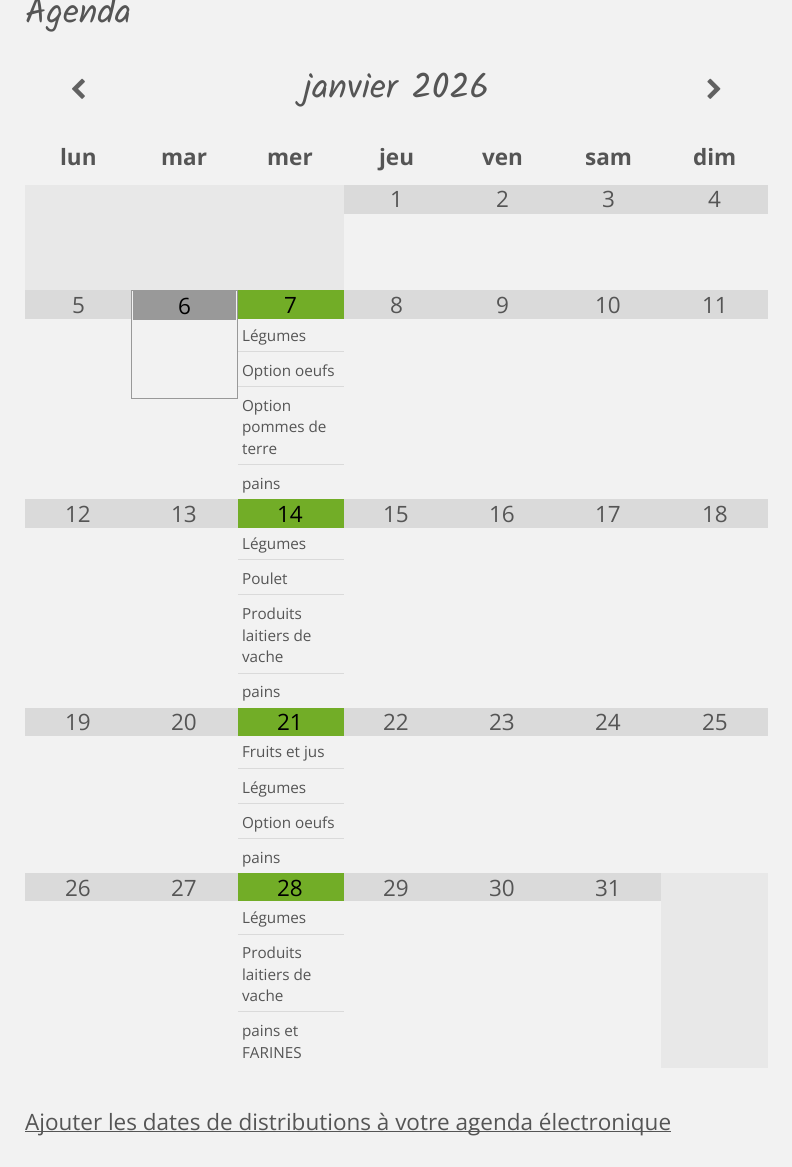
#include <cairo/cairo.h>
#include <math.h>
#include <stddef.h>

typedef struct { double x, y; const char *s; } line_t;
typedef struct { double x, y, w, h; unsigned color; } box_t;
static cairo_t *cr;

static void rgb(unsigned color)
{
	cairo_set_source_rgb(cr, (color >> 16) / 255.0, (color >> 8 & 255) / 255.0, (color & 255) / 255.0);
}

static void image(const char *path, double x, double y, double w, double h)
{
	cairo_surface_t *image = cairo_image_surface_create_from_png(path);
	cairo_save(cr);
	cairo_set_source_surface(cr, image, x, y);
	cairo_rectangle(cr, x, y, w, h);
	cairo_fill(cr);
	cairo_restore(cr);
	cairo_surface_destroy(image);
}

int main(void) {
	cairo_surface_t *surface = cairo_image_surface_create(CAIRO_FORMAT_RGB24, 792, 1167);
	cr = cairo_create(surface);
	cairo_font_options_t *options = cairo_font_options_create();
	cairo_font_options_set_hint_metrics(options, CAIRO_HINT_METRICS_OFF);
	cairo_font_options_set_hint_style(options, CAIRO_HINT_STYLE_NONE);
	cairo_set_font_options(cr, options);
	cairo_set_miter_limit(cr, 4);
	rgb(0xf2f2f2);
	cairo_paint(cr);
	image("img/1.png", 72, 78, 13, 21);
	image("img/2.png", 707, 78, 14, 21);
	{
		static const box_t items[] = {
			{25, 185, 319, 105, 0xe8e8e8},
			{344, 185, 424, 29, 0xdadada},
			{25, 290, 106, 29, 0xdadada},
		};
		for (size_t i = 0; i < sizeof items / sizeof *items; i++) {
			rgb(items[i].color);
			cairo_rectangle(cr, items[i].x, items[i].y, items[i].w, items[i].h);
			cairo_fill(cr);
		}
	}
	cairo_rectangle(cr, 131.5, 290.5, 106, 108);
	rgb(0x999999);
	cairo_set_line_width(cr, 1);
	cairo_stroke(cr);
	{
		static const box_t items[] = {
			{133, 291, 103, 29, 0x999999},
			{238, 290, 106, 29, 0x72ad27},
			{238, 351, 106, 1, 0xdadada},
			{238, 386, 106, 1, 0xdadada},
			{238, 464, 106, 1, 0xdadada},
			{344, 290, 424, 29, 0xdadada},
			{25, 499, 213, 29, 0xdadada},
			{238, 499, 106, 29, 0x72ad27},
			{238, 559, 106, 1, 0xdadada},
			{238, 594, 106, 1, 0xdadada},
			{238, 673, 106, 1, 0xdadada},
			{344, 499, 424, 29, 0xdadada},
			{25, 708, 213, 28, 0xdadada},
			{238, 708, 106, 28, 0x72ad27},
			{238, 768, 106, 1, 0xdadada},
			{238, 803, 106, 1, 0xdadada},
			{238, 838, 106, 1, 0xdadada},
			{344, 708, 424, 28, 0xdadada},
			{25, 873, 213, 28, 0xdadada},
			{238, 873, 106, 28, 0x72ad27},
			{238, 934, 106, 1, 0xdadada},
			{238, 1011, 106, 1, 0xdadada},
			{344, 873, 317, 28, 0xdadada},
			{661, 873, 107, 195, 0xe8e8e8},
			{25, 1131, 646, 1, 0x555555},
		};
		for (size_t i = 0; i < sizeof items / sizeof *items; i++) {
			rgb(items[i].color);
			cairo_rectangle(cr, items[i].x, items[i].y, items[i].w, items[i].h);
			cairo_fill(cr);
		}
	}
	cairo_select_font_face(cr, "Kalam", CAIRO_FONT_SLANT_NORMAL, CAIRO_FONT_WEIGHT_NORMAL);
	cairo_set_font_size(cr, 35);
	cairo_move_to(cr, 25, 23);
	cairo_show_text(cr, "Agenda");
	cairo_move_to(cr, 303, 98);
	cairo_show_text(cr, "janvier 2026");
	cairo_select_font_face(cr, "Open Sans", CAIRO_FONT_SLANT_NORMAL, CAIRO_FONT_WEIGHT_BOLD);
	cairo_set_font_size(cr, 22.5);
	{
		static const line_t items[] = {
			{60, 165, "lun"},
			{161, 165, "mar"},
			{267, 165, "mer"},
			{379, 165, "jeu"},
			{482, 165, "ven"},
			{585, 165, "sam"},
			{693, 165, "dim"},
		};
		for (size_t i = 0; i < sizeof items / sizeof *items; i++) {
			cairo_move_to(cr, items[i].x, items[i].y);
			cairo_show_text(cr, items[i].s);
		}
	}
	cairo_select_font_face(cr, "Open Sans", CAIRO_FONT_SLANT_NORMAL, CAIRO_FONT_WEIGHT_NORMAL);
	{
		static const line_t items[] = {
			{390, 207, "1"},
			{496, 207, "2"},
			{602, 207, "3"},
			{708, 207, "4"},
			{72, 313, "5"},
		};
		for (size_t i = 0; i < sizeof items / sizeof *items; i++) {
			cairo_move_to(cr, items[i].x, items[i].y);
			cairo_show_text(cr, items[i].s);
		}
	}
	rgb(0x000000);
	cairo_move_to(cr, 178, 314);
	cairo_show_text(cr, "6");
	cairo_move_to(cr, 284, 313);
	cairo_show_text(cr, "7");
	cairo_set_font_size(cr, 15.25);
	rgb(0x555555);
	{
		static const line_t items[] = {
			{242, 341, "Légumes"},
			{242, 376, "Option oeufs"},
			{242, 411, "Option"},
			{242, 432, "pommes de"},
			{242, 454, "terre"},
			{242, 489, "pains"},
		};
		for (size_t i = 0; i < sizeof items / sizeof *items; i++) {
			cairo_move_to(cr, items[i].x, items[i].y);
			cairo_show_text(cr, items[i].s);
		}
	}
	cairo_set_font_size(cr, 22.5);
	{
		static const line_t items[] = {
			{390, 313, "8"},
			{496, 313, "9"},
			{595, 313, "10"},
			{702, 313, "11"},
			{65, 522, "12"},
			{171, 522, "13"},
		};
		for (size_t i = 0; i < sizeof items / sizeof *items; i++) {
			cairo_move_to(cr, items[i].x, items[i].y);
			cairo_show_text(cr, items[i].s);
		}
	}
	rgb(0x000000);
	cairo_move_to(cr, 277, 522);
	cairo_show_text(cr, "14");
	cairo_set_font_size(cr, 15.25);
	rgb(0x555555);
	{
		static const line_t items[] = {
			{242, 549, "Légumes"},
			{242, 584, "Poulet"},
			{242, 619, "Produits"},
			{242, 641, "laitiers de"},
			{242, 662, "vache"},
			{242, 697, "pains"},
		};
		for (size_t i = 0; i < sizeof items / sizeof *items; i++) {
			cairo_move_to(cr, items[i].x, items[i].y);
			cairo_show_text(cr, items[i].s);
		}
	}
	cairo_set_font_size(cr, 22.5);
	{
		static const line_t items[] = {
			{383, 522, "15"},
			{489, 522, "16"},
			{595, 522, "17"},
			{702, 522, "18"},
			{65, 730, "19"},
			{171, 730, "20"},
		};
		for (size_t i = 0; i < sizeof items / sizeof *items; i++) {
			cairo_move_to(cr, items[i].x, items[i].y);
			cairo_show_text(cr, items[i].s);
		}
	}
	rgb(0x000000);
	cairo_move_to(cr, 277, 730);
	cairo_show_text(cr, "21");
	cairo_set_font_size(cr, 15.25);
	rgb(0x555555);
	{
		static const line_t items[] = {
			{242, 757, "Fruits et jus"},
			{242, 793, "Légumes"},
			{242, 828, "Option oeufs"},
			{242, 863, "pains"},
		};
		for (size_t i = 0; i < sizeof items / sizeof *items; i++) {
			cairo_move_to(cr, items[i].x, items[i].y);
			cairo_show_text(cr, items[i].s);
		}
	}
	cairo_set_font_size(cr, 22.5);
	{
		static const line_t items[] = {
			{383, 730, "22"},
			{489, 730, "23"},
			{595, 730, "24"},
			{702, 730, "25"},
			{65, 896, "26"},
			{171, 896, "27"},
		};
		for (size_t i = 0; i < sizeof items / sizeof *items; i++) {
			cairo_move_to(cr, items[i].x, items[i].y);
			cairo_show_text(cr, items[i].s);
		}
	}
	rgb(0x000000);
	cairo_move_to(cr, 277, 896);
	cairo_show_text(cr, "28");
	cairo_set_font_size(cr, 15.25);
	rgb(0x555555);
	{
		static const line_t items[] = {
			{242, 923, "Légumes"},
			{242, 958, "Produits"},
			{242, 980, "laitiers de"},
			{242, 1001, "vache"},
			{242, 1036, "pains et"},
			{242, 1058, "FARINES"},
		};
		for (size_t i = 0; i < sizeof items / sizeof *items; i++) {
			cairo_move_to(cr, items[i].x, items[i].y);
			cairo_show_text(cr, items[i].s);
		}
	}
	cairo_set_font_size(cr, 22.5);
	{
		static const line_t items[] = {
			{383, 896, "29"},
			{489, 896, "30"},
			{595, 896, "31"},
			{25, 1130, "Ajouter les dates de distributions à votre agenda électronique"},
		};
		for (size_t i = 0; i < sizeof items / sizeof *items; i++) {
			cairo_move_to(cr, items[i].x, items[i].y);
			cairo_show_text(cr, items[i].s);
		}
	}
	cairo_surface_write_to_png(surface, "page.png");
	cairo_font_options_destroy(options);
	cairo_destroy(cr);
	cairo_surface_destroy(surface);
	return 0;
}
